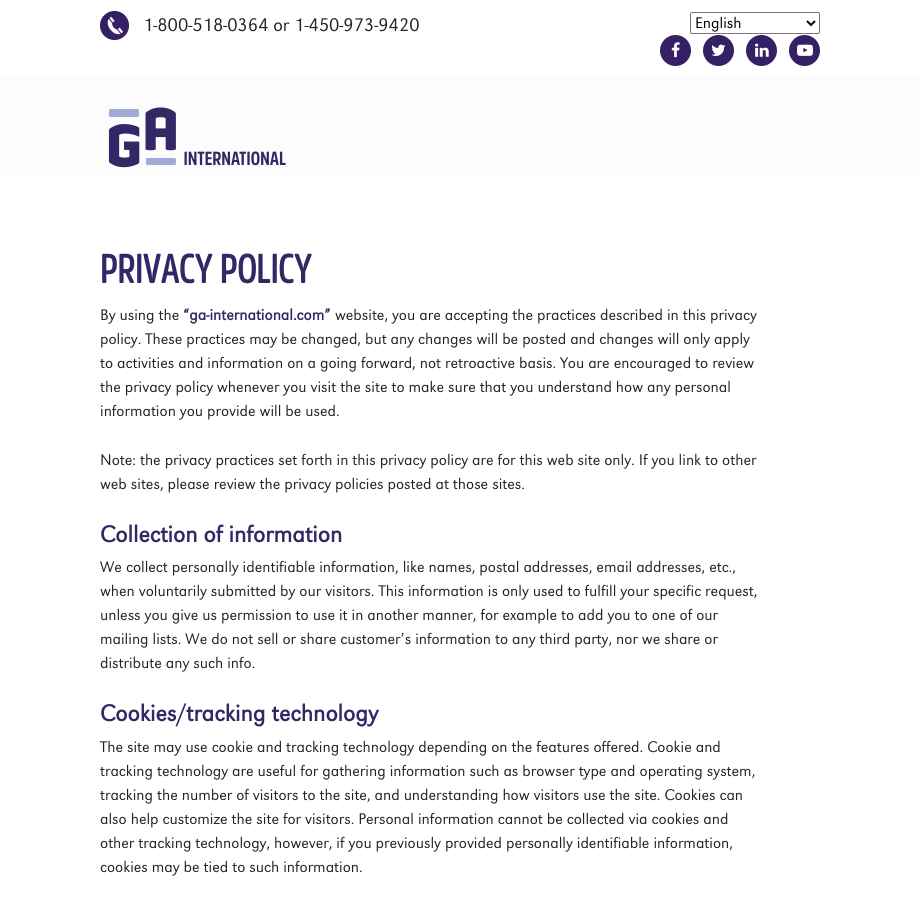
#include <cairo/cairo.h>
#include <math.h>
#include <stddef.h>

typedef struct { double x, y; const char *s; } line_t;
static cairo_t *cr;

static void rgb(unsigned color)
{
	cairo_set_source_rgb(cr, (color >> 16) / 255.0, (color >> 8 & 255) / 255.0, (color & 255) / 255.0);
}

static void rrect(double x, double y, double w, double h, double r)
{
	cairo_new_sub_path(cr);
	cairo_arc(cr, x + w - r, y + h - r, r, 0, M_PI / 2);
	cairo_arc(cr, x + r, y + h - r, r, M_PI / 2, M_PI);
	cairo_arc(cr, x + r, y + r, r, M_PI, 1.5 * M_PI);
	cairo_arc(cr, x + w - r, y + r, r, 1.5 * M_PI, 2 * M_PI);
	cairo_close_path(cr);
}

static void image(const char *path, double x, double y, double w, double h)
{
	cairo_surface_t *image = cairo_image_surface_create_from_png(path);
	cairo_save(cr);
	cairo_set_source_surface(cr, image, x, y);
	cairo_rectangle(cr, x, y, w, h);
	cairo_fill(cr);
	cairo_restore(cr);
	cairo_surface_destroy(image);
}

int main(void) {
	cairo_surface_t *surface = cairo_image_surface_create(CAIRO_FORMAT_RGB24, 920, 899);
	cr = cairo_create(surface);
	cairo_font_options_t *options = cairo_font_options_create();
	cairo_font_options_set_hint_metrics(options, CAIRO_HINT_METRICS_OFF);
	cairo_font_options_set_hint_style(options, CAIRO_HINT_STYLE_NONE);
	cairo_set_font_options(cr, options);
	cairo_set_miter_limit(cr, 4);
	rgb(0xffffff);
	cairo_paint(cr);
	image("img/1.png", 100, 11, 29, 29);
	rrect(690.5, 12.5, 129, 21, 1.5);
	rgb(0x767676);
	cairo_set_line_width(cr, 1);
	cairo_stroke(cr);
	cairo_new_path(cr);
	cairo_move_to(cr, 807, 21);
	cairo_line_to(cr, 811, 25);
	cairo_line_to(cr, 815, 21);
	rgb(0x000000);
	cairo_set_line_width(cr, 2);
	cairo_stroke(cr);
	rgb(0x351f65);
	cairo_arc(cr, 675.5, 50.5, 15.5, 0, 2 * M_PI);
	cairo_fill(cr);
	image("img/2.png", 671, 42, 9, 16);
	cairo_arc(cr, 718.5, 50.5, 15.5, 0, 2 * M_PI);
	cairo_fill(cr);
	image("img/3.png", 711, 44, 15, 12);
	cairo_arc(cr, 761.5, 50.5, 15.5, 0, 2 * M_PI);
	cairo_fill(cr);
	image("img/4.png", 755, 43, 14, 14);
	cairo_arc(cr, 804.5, 50.5, 15.5, 0, 2 * M_PI);
	cairo_fill(cr);
	image("img/5.png", 797, 44, 16, 12);
	rgb(0xfcfcfc);
	cairo_rectangle(cr, 0, 77, 920, 100);
	cairo_fill(cr);
	image("img/6.png", 108, 107, 178, 61);
	cairo_select_font_face(cr, "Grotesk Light", CAIRO_FONT_SLANT_NORMAL, CAIRO_FONT_WEIGHT_NORMAL);
	cairo_set_font_size(cr, 19);
	rgb(0x212529);
	cairo_move_to(cr, 143, 31);
	cairo_show_text(cr, "1-800-518-0364 or 1-450-973-9420");
	cairo_set_font_size(cr, 16);
	rgb(0x000000);
	cairo_move_to(cr, 695, 28);
	cairo_show_text(cr, "English");
	cairo_select_font_face(cr, "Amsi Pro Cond", CAIRO_FONT_SLANT_NORMAL, CAIRO_FONT_WEIGHT_BOLD);
	cairo_set_font_size(cr, 40);
	rgb(0x342766);
	cairo_move_to(cr, 100, 283);
	cairo_show_text(cr, "PRIVACY POLICY");
	cairo_select_font_face(cr, "Grotesk Light", CAIRO_FONT_SLANT_NORMAL, CAIRO_FONT_WEIGHT_NORMAL);
	cairo_set_font_size(cr, 16);
	rgb(0x212529);
	cairo_move_to(cr, 100, 320);
	cairo_show_text(cr, "By using the");
	cairo_select_font_face(cr, "Grotesk", CAIRO_FONT_SLANT_NORMAL, CAIRO_FONT_WEIGHT_BOLD);
	rgb(0x342766);
	cairo_move_to(cr, 183, 320);
	cairo_show_text(cr, "“ga-international.com”");
	cairo_select_font_face(cr, "Grotesk Light", CAIRO_FONT_SLANT_NORMAL, CAIRO_FONT_WEIGHT_NORMAL);
	rgb(0x212529);
	{
		static const line_t items[] = {
			{335, 320, "website, you are accepting the practices described in this privacy"},
			{100, 344, "policy. These practices may be changed, but any changes will be posted and changes will only apply"},
			{100, 368, "to activities and information on a going forward, not retroactive basis. You are encouraged to review"},
			{100, 392, "the privacy policy whenever you visit the site to make sure that you understand how any personal"},
			{100, 416, "information you provide will be used."},
			{100, 465, "Note: the privacy practices set forth in this privacy policy are for this web site only. If you link to other"},
			{100, 489, "web sites, please review the privacy policies posted at those sites."},
		};
		for (size_t i = 0; i < sizeof items / sizeof *items; i++) {
			cairo_move_to(cr, items[i].x, items[i].y);
			cairo_show_text(cr, items[i].s);
		}
	}
	cairo_select_font_face(cr, "Grotesk", CAIRO_FONT_SLANT_NORMAL, CAIRO_FONT_WEIGHT_BOLD);
	cairo_set_font_size(cr, 24);
	rgb(0x342766);
	cairo_move_to(cr, 100, 542);
	cairo_show_text(cr, "Collection of information");
	cairo_select_font_face(cr, "Grotesk Light", CAIRO_FONT_SLANT_NORMAL, CAIRO_FONT_WEIGHT_NORMAL);
	cairo_set_font_size(cr, 16);
	rgb(0x212529);
	{
		static const line_t items[] = {
			{100, 572, "We collect personally identifiable information, like names, postal addresses, email addresses, etc.,"},
			{100, 596, "when voluntarily submitted by our visitors. This information is only used to fulfill your specific request,"},
			{100, 620, "unless you give us permission to use it in another manner, for example to add you to one of our"},
			{100, 644, "mailing lists. We do not sell or share customer’s information to any third party, nor we share or"},
			{100, 668, "distribute any such info."},
		};
		for (size_t i = 0; i < sizeof items / sizeof *items; i++) {
			cairo_move_to(cr, items[i].x, items[i].y);
			cairo_show_text(cr, items[i].s);
		}
	}
	cairo_select_font_face(cr, "Grotesk", CAIRO_FONT_SLANT_NORMAL, CAIRO_FONT_WEIGHT_BOLD);
	cairo_set_font_size(cr, 24);
	rgb(0x342766);
	cairo_move_to(cr, 100, 721);
	cairo_show_text(cr, "Cookies/tracking technology");
	cairo_select_font_face(cr, "Grotesk Light", CAIRO_FONT_SLANT_NORMAL, CAIRO_FONT_WEIGHT_NORMAL);
	cairo_set_font_size(cr, 16);
	rgb(0x212529);
	{
		static const line_t items[] = {
			{100, 752, "The site may use cookie and tracking technology depending on the features offered. Cookie and"},
			{100, 776, "tracking technology are useful for gathering information such as browser type and operating system,"},
			{100, 800, "tracking the number of visitors to the site, and understanding how visitors use the site. Cookies can"},
			{100, 824, "also help customize the site for visitors. Personal information cannot be collected via cookies and"},
			{100, 848, "other tracking technology, however, if you previously provided personally identifiable information,"},
			{100, 872, "cookies may be tied to such information."},
		};
		for (size_t i = 0; i < sizeof items / sizeof *items; i++) {
			cairo_move_to(cr, items[i].x, items[i].y);
			cairo_show_text(cr, items[i].s);
		}
	}
	cairo_surface_write_to_png(surface, "page.png");
	cairo_font_options_destroy(options);
	cairo_destroy(cr);
	cairo_surface_destroy(surface);
	return 0;
}
